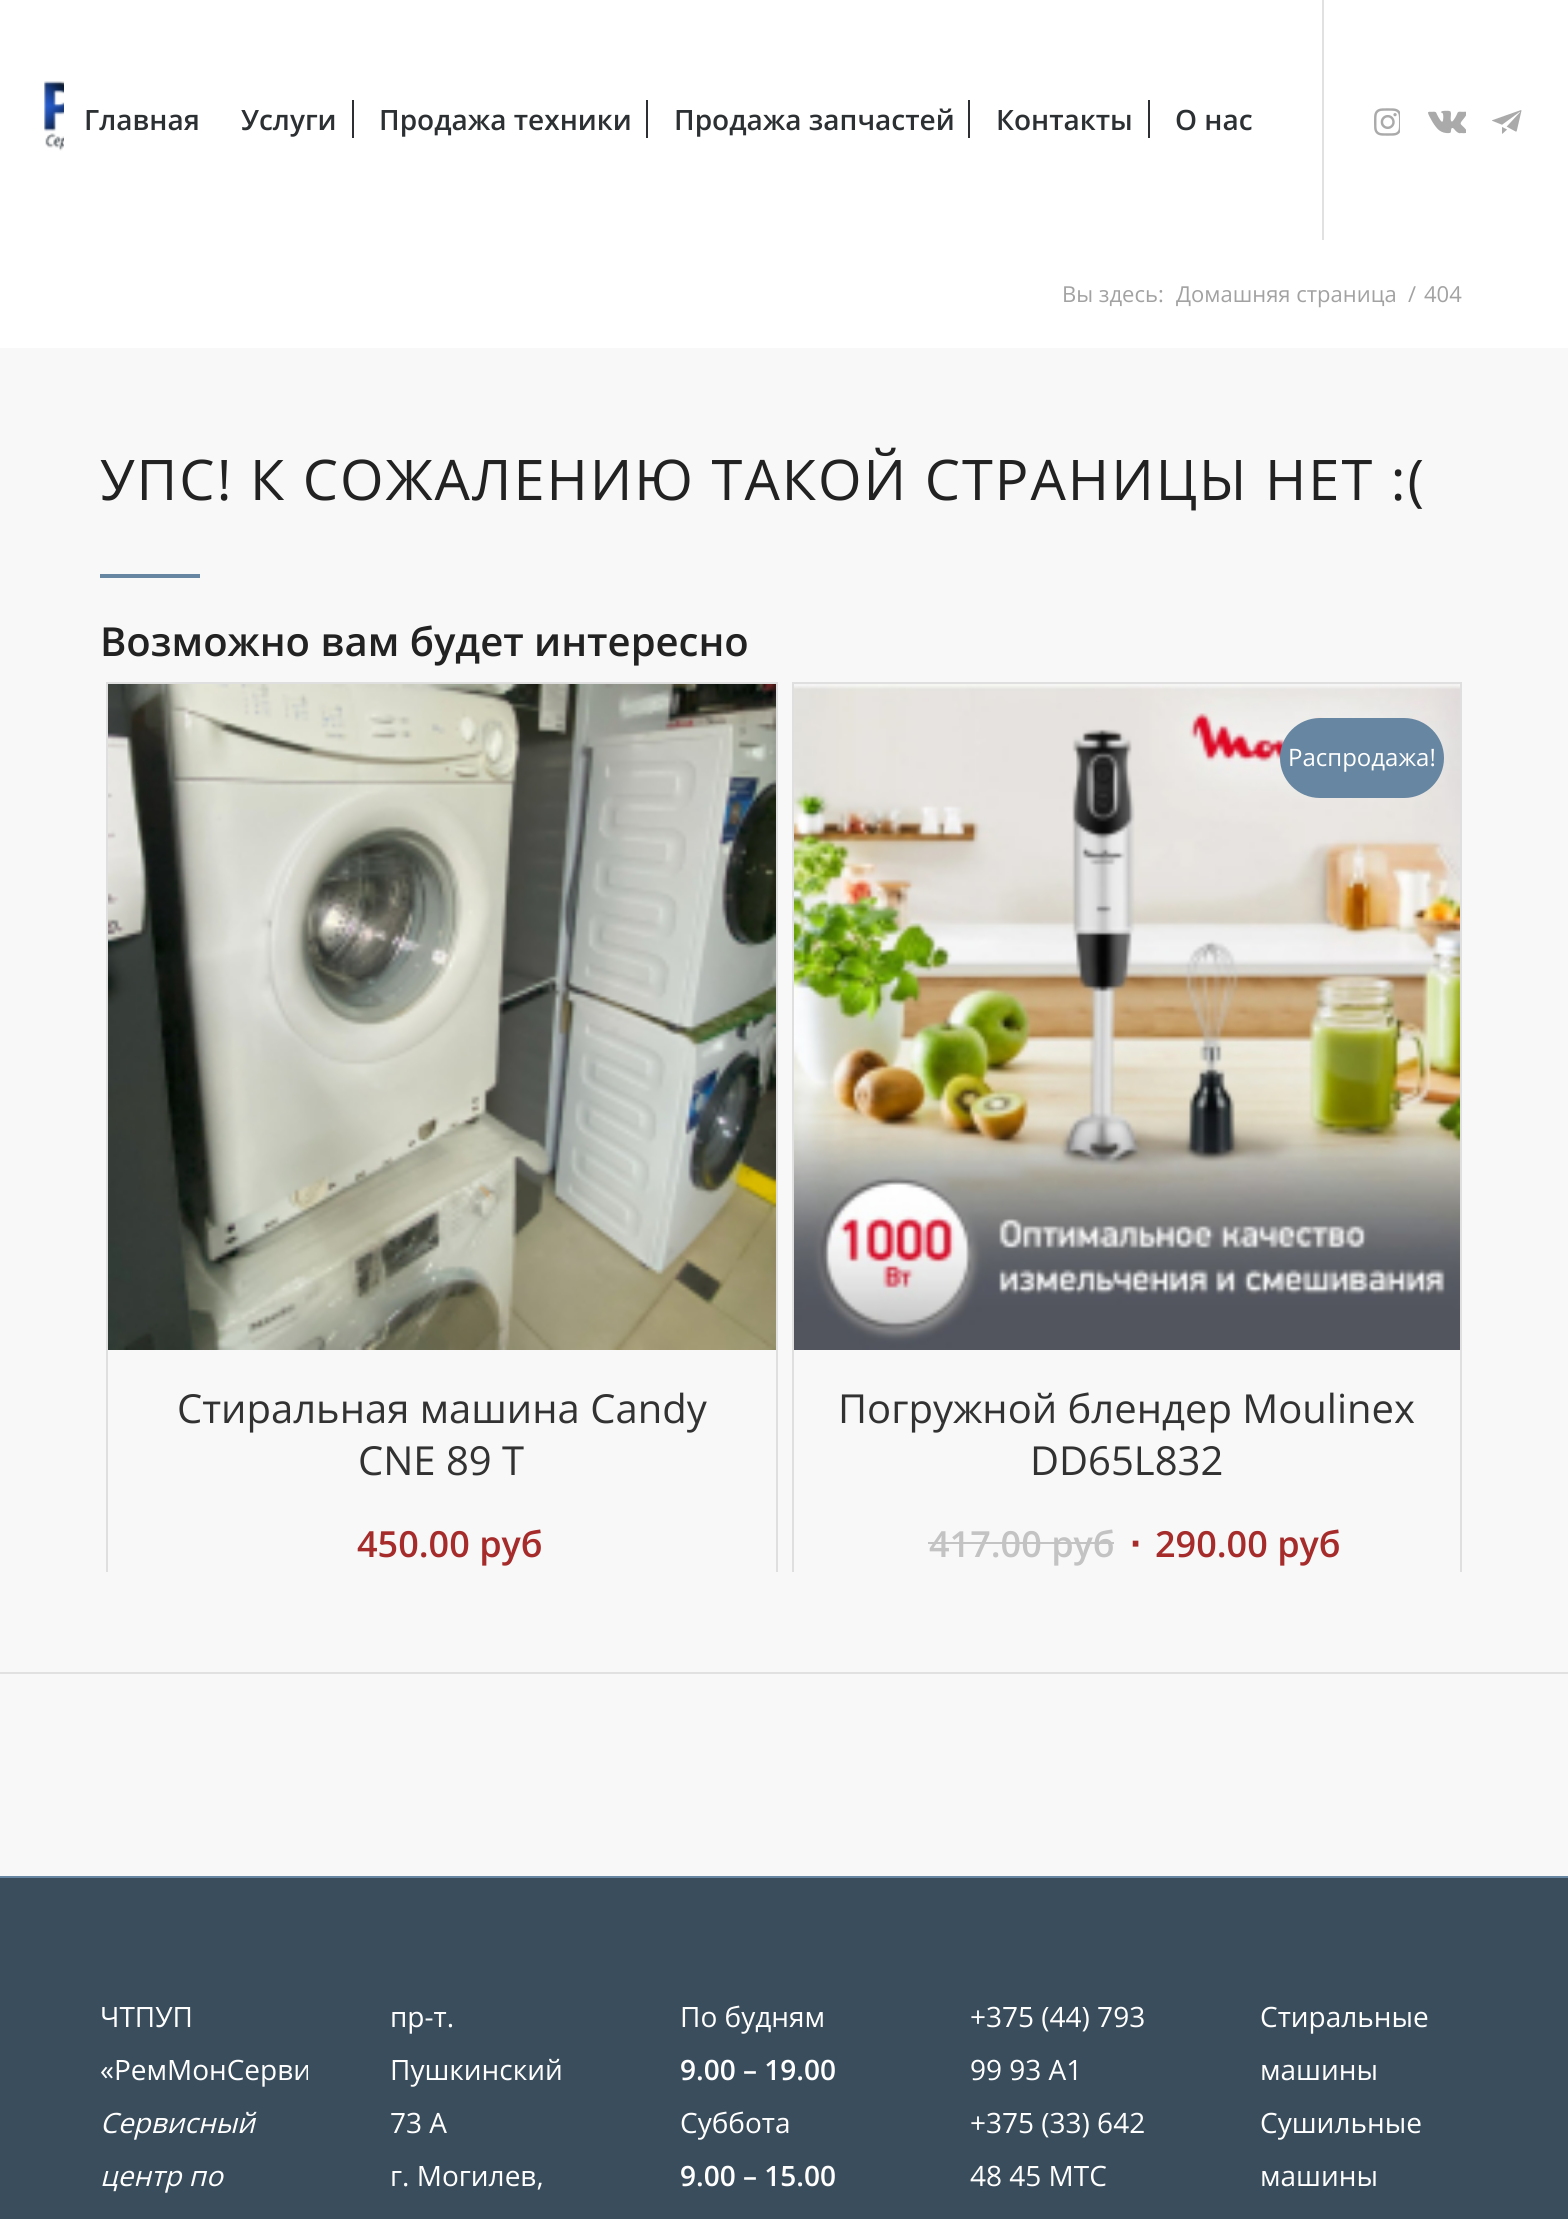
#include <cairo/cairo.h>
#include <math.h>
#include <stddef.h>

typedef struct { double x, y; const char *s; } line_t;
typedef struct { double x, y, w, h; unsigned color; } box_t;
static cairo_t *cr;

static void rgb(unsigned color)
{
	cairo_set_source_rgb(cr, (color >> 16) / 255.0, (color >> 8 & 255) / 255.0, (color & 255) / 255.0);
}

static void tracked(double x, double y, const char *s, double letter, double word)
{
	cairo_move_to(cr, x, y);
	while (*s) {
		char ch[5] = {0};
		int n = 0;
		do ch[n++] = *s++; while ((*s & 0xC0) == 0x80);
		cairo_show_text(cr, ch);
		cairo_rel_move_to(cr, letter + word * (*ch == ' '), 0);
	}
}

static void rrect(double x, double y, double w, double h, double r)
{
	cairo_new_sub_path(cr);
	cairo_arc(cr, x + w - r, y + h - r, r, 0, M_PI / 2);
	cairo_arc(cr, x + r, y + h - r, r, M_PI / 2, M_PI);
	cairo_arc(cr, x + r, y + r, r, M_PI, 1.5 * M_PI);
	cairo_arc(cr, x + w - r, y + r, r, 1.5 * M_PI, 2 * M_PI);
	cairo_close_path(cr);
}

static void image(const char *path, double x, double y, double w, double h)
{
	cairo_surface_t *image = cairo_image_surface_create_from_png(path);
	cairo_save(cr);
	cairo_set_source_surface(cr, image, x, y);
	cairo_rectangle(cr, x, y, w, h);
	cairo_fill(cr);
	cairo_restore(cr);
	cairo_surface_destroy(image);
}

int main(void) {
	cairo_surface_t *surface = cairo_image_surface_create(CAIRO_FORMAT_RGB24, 1568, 2219);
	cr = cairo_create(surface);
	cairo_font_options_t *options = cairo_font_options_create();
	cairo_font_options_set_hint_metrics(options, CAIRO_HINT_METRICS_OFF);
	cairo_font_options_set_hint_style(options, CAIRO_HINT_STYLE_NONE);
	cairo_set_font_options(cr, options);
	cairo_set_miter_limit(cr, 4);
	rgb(0xffffff);
	cairo_paint(cr);
	image("img/1.png", 44, 81, 20, 70);
	{
		static const box_t items[] = {
			{1322, 0, 2, 240, 0xe1e1e1},
			{352, 100, 2, 38, 0x2c3033},
			{646, 100, 2, 38, 0x2c3033},
			{968, 100, 2, 38, 0x2c3033},
			{1148, 100, 2, 38, 0x2c3033},
		};
		for (size_t i = 0; i < sizeof items / sizeof *items; i++) {
			rgb(items[i].color);
			cairo_rectangle(cr, items[i].x, items[i].y, items[i].w, items[i].h);
			cairo_fill(cr);
		}
	}
	image("img/2.png", 1374, 108, 26, 28);
	image("img/3.png", 1428, 110, 38, 24);
	image("img/4.png", 1492, 110, 30, 24);
	rgb(0xf8f8f8);
	cairo_rectangle(cr, 0, 348, 1568, 1324);
	cairo_fill(cr);
	rgb(0x6786a1);
	cairo_rectangle(cr, 100, 574, 100, 4);
	cairo_fill(cr);
	cairo_save(cr);
	cairo_rectangle(cr, 100, 680, 1368, 892);
	cairo_clip(cr);
	cairo_rectangle(cr, 107, 683, 670, 890);
	rgb(0xdfdfdf);
	cairo_stroke(cr);
	cairo_restore(cr);
	image("img/5.png", 108, 684, 668, 666);
	cairo_save(cr);
	cairo_rectangle(cr, 100, 680, 1368, 892);
	cairo_clip(cr);
	cairo_rectangle(cr, 793, 683, 668, 890);
	rgb(0xdfdfdf);
	cairo_stroke(cr);
	cairo_restore(cr);
	image("img/6.png", 794, 684, 666, 666);
	rrect(1280, 718, 164, 80, 40);
	cairo_fill(cr);
	{
		static const box_t items[] = {
			{928, 1542, 186, 2, 0xc3c3c3},
			{0, 1674, 1568, 202, 0xf8f8f8},
			{0, 1672, 1568, 2, 0xe1e1e1},
			{0, 1878, 1568, 341, 0x3a4d5c},
			{0, 1876, 1568, 2, 0x6786a1},
		};
		for (size_t i = 0; i < sizeof items / sizeof *items; i++) {
			rgb(items[i].color);
			cairo_rectangle(cr, items[i].x, items[i].y, items[i].w, items[i].h);
			cairo_fill(cr);
		}
	}
	cairo_select_font_face(cr, "Open Sans SemiBold", CAIRO_FONT_SLANT_NORMAL, CAIRO_FONT_WEIGHT_NORMAL);
	cairo_set_font_size(cr, 28);
	rgb(0x2c3033);
	{
		static const line_t items[] = {
			{84, 130, "Главная"},
			{241, 130, "Услуги"},
			{379, 130, "Продажа техники"},
			{674, 130, "Продажа запчастей"},
			{996, 130, "Контакты"},
			{1175, 130, "О нас"},
		};
		for (size_t i = 0; i < sizeof items / sizeof *items; i++) {
			cairo_move_to(cr, items[i].x, items[i].y);
			cairo_show_text(cr, items[i].s);
		}
	}
	cairo_select_font_face(cr, "Open Sans", CAIRO_FONT_SLANT_NORMAL, CAIRO_FONT_WEIGHT_NORMAL);
	cairo_set_font_size(cr, 22);
	rgb(0xa2a2a2);
	{
		static const line_t items[] = {
			{1062, 302, "Вы здесь:"},
			{1176, 302, "Домашняя страница"},
			{1408, 302, "/"},
			{1424, 302, "404"},
		};
		for (size_t i = 0; i < sizeof items / sizeof *items; i++) {
			cairo_move_to(cr, items[i].x, items[i].y);
			cairo_show_text(cr, items[i].s);
		}
	}
	cairo_set_font_size(cr, 56);
	rgb(0x222222);
	tracked(100, 500, "УПС! К СОЖАЛЕНИЮ ТАКОЙ СТРАНИЦЫ НЕТ :(", 2, 0);
	cairo_select_font_face(cr, "Open Sans SemiBold", CAIRO_FONT_SLANT_NORMAL, CAIRO_FONT_WEIGHT_NORMAL);
	cairo_set_font_size(cr, 40);
	cairo_move_to(cr, 100, 656);
	cairo_show_text(cr, "Возможно вам будет интересно");
	cairo_select_font_face(cr, "Open Sans", CAIRO_FONT_SLANT_NORMAL, CAIRO_FONT_WEIGHT_NORMAL);
	rgb(0x323232);
	cairo_move_to(cr, 177, 1423);
	cairo_show_text(cr, "Стиральная машина Candy");
	cairo_move_to(cr, 358, 1475);
	cairo_show_text(cr, "CNE 89 T");
	cairo_select_font_face(cr, "Open Sans SemiBold", CAIRO_FONT_SLANT_NORMAL, CAIRO_FONT_WEIGHT_NORMAL);
	cairo_set_font_size(cr, 36);
	rgb(0xa62c2c);
	cairo_move_to(cr, 357, 1557);
	cairo_show_text(cr, "450.00 руб");
	cairo_select_font_face(cr, "Open Sans", CAIRO_FONT_SLANT_NORMAL, CAIRO_FONT_WEIGHT_NORMAL);
	cairo_set_font_size(cr, 24);
	rgb(0xffffff);
	cairo_move_to(cr, 1288, 766);
	cairo_show_text(cr, "Распродажа!");
	cairo_set_font_size(cr, 40);
	rgb(0x323232);
	cairo_move_to(cr, 838, 1423);
	cairo_show_text(cr, "Погружной блендер Moulinex");
	cairo_move_to(cr, 1030, 1475);
	cairo_show_text(cr, "DD65L832");
	cairo_select_font_face(cr, "Open Sans SemiBold", CAIRO_FONT_SLANT_NORMAL, CAIRO_FONT_WEIGHT_NORMAL);
	cairo_set_font_size(cr, 36);
	rgb(0xc3c3c3);
	cairo_move_to(cr, 929, 1557);
	cairo_show_text(cr, "417.00 руб");
	cairo_select_font_face(cr, "Liberation Sans", CAIRO_FONT_SLANT_NORMAL, CAIRO_FONT_WEIGHT_BOLD);
	cairo_set_font_size(cr, 40);
	rgb(0xa62c2c);
	cairo_move_to(cr, 1130, 1557);
	cairo_show_text(cr, "∙");
	cairo_select_font_face(cr, "Open Sans SemiBold", CAIRO_FONT_SLANT_NORMAL, CAIRO_FONT_WEIGHT_NORMAL);
	cairo_set_font_size(cr, 36);
	cairo_move_to(cr, 1155, 1557);
	cairo_show_text(cr, "290.00 руб");
	cairo_select_font_face(cr, "Open Sans", CAIRO_FONT_SLANT_NORMAL, CAIRO_FONT_WEIGHT_NORMAL);
	cairo_set_font_size(cr, 28);
	rgb(0xffffff);
	cairo_move_to(cr, 100, 2027);
	cairo_show_text(cr, "ЧТПУП");
	cairo_save(cr);
	cairo_rectangle(cr, 100, 1968, 208, 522);
	cairo_clip(cr);
	cairo_move_to(cr, 100, 2080);
	cairo_show_text(cr, "«РемМонСерви");
	cairo_restore(cr);
	cairo_select_font_face(cr, "Open Sans", CAIRO_FONT_SLANT_ITALIC, CAIRO_FONT_WEIGHT_NORMAL);
	cairo_move_to(cr, 100, 2133);
	cairo_show_text(cr, "Сервисный");
	cairo_move_to(cr, 100, 2186);
	cairo_show_text(cr, "центр по");
	cairo_select_font_face(cr, "Open Sans", CAIRO_FONT_SLANT_NORMAL, CAIRO_FONT_WEIGHT_NORMAL);
	{
		static const line_t items[] = {
			{390, 2027, "пр-т."},
			{390, 2080, "Пушкинский"},
			{390, 2133, "73 А"},
			{390, 2186, "г. Могилев,"},
			{680, 2027, "По будням"},
		};
		for (size_t i = 0; i < sizeof items / sizeof *items; i++) {
			cairo_move_to(cr, items[i].x, items[i].y);
			cairo_show_text(cr, items[i].s);
		}
	}
	cairo_select_font_face(cr, "Open Sans SemiBold", CAIRO_FONT_SLANT_NORMAL, CAIRO_FONT_WEIGHT_NORMAL);
	cairo_move_to(cr, 680, 2080);
	cairo_show_text(cr, "9.00 – 19.00");
	cairo_select_font_face(cr, "Open Sans", CAIRO_FONT_SLANT_NORMAL, CAIRO_FONT_WEIGHT_NORMAL);
	cairo_move_to(cr, 680, 2133);
	cairo_show_text(cr, "Суббота");
	cairo_select_font_face(cr, "Open Sans SemiBold", CAIRO_FONT_SLANT_NORMAL, CAIRO_FONT_WEIGHT_NORMAL);
	cairo_move_to(cr, 680, 2186);
	cairo_show_text(cr, "9.00 – 15.00");
	cairo_select_font_face(cr, "Open Sans", CAIRO_FONT_SLANT_NORMAL, CAIRO_FONT_WEIGHT_NORMAL);
	{
		static const line_t items[] = {
			{970, 2027, "+375 (44) 793"},
			{970, 2080, "99 93 A1"},
			{970, 2133, "+375 (33) 642"},
			{970, 2186, "48 45 MTC"},
			{1260, 2027, "Стиральные"},
			{1260, 2080, "машины"},
			{1260, 2133, "Сушильные"},
			{1260, 2186, "машины"},
		};
		for (size_t i = 0; i < sizeof items / sizeof *items; i++) {
			cairo_move_to(cr, items[i].x, items[i].y);
			cairo_show_text(cr, items[i].s);
		}
	}
	cairo_surface_write_to_png(surface, "page.png");
	cairo_font_options_destroy(options);
	cairo_destroy(cr);
	cairo_surface_destroy(surface);
	return 0;
}
